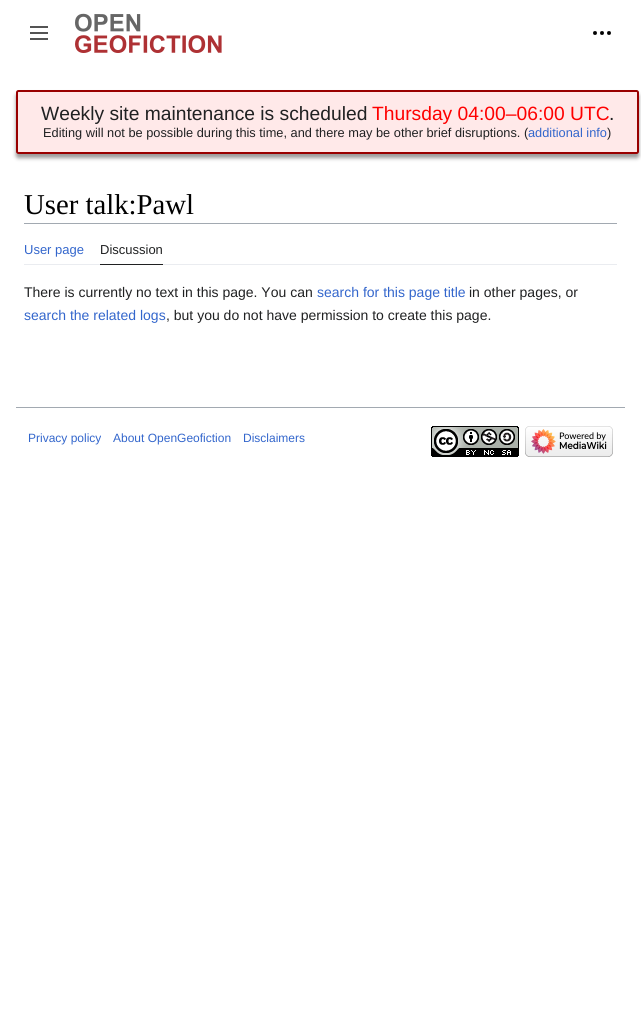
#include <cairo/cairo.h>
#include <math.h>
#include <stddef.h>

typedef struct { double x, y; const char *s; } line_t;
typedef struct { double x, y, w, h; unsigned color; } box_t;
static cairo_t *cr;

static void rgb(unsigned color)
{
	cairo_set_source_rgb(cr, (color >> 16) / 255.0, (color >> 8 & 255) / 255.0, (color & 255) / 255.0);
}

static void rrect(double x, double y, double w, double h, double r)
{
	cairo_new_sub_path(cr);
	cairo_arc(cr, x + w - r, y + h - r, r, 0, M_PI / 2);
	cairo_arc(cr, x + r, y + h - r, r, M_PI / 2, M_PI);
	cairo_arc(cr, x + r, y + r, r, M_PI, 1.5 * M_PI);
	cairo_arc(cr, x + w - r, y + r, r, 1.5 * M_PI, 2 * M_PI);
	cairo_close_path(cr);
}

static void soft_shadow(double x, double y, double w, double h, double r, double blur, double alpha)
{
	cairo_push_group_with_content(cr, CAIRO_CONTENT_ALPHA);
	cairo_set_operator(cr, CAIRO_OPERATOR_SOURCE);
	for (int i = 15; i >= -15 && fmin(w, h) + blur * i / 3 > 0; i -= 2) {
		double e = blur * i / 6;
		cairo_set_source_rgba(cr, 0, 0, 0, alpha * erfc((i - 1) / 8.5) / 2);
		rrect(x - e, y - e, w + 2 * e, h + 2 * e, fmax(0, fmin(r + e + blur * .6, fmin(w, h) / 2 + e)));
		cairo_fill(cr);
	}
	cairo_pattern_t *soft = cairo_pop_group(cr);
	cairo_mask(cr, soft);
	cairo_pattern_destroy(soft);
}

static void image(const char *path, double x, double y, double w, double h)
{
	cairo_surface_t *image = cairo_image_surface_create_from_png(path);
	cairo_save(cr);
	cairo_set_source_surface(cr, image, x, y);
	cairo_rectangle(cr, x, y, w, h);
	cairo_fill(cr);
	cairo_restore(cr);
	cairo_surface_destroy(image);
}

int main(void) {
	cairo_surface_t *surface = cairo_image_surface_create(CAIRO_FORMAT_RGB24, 641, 1011);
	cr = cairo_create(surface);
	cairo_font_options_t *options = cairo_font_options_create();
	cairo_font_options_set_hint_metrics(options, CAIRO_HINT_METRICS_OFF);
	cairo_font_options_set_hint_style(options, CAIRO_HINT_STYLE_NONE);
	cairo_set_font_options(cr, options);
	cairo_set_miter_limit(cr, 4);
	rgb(0xffffff);
	cairo_paint(cr);
	image("img/1.png", 30, 26, 18, 14);
	image("img/2.png", 75, 13, 147, 40);
	image("img/3.png", 593, 31, 18, 4);
	rgb(0x999999);
	soft_shadow(16, 94, 623, 64, 2.5, 2, 1);
	rgb(0xffe9e9);
	rrect(17, 91, 621, 62, 1.5);
	cairo_fill_preserve(cr);
	rgb(0x990000);
	cairo_stroke(cr);
	{
		static const box_t items[] = {
			{24, 223, 593, 1, 0xa2a9b1},
			{24, 264, 593, 1, 0xeaecf0},
			{100, 264, 63, 1, 0x202122},
			{16, 407, 609, 1, 0xa2a9b1},
		};
		for (size_t i = 0; i < sizeof items / sizeof *items; i++) {
			rgb(items[i].color);
			cairo_rectangle(cr, items[i].x, items[i].y, items[i].w, items[i].h);
			cairo_fill(cr);
		}
	}
	image("img/4.png", 431, 426, 88, 31);
	image("img/5.png", 525, 426, 88, 31);
	cairo_select_font_face(cr, "Liberation Sans", CAIRO_FONT_SLANT_NORMAL, CAIRO_FONT_WEIGHT_NORMAL);
	cairo_set_font_size(cr, 19.25);
	rgb(0x202122);
	cairo_move_to(cr, 41, 120);
	cairo_show_text(cr, "Weekly site maintenance is scheduled");
	rgb(0xff0000);
	cairo_move_to(cr, 372, 120);
	cairo_show_text(cr, "Thursday 04:00–06:00 UTC");
	rgb(0x202122);
	cairo_move_to(cr, 609, 120);
	cairo_show_text(cr, ".");
	cairo_set_font_size(cr, 12.8);
	cairo_move_to(cr, 43, 137);
	cairo_show_text(cr, "Editing will not be possible during this time, and there may be other brief disruptions. (");
	rgb(0x3366cc);
	cairo_move_to(cr, 528, 137);
	cairo_show_text(cr, "additional info");
	rgb(0x202122);
	cairo_move_to(cr, 607, 137);
	cairo_show_text(cr, ")");
	cairo_select_font_face(cr, "Liberation Serif", CAIRO_FONT_SLANT_NORMAL, CAIRO_FONT_WEIGHT_NORMAL);
	cairo_set_font_size(cr, 28.75);
	rgb(0x000000);
	cairo_move_to(cr, 24, 214);
	cairo_show_text(cr, "User talk:Pawl");
	cairo_select_font_face(cr, "Liberation Sans", CAIRO_FONT_SLANT_NORMAL, CAIRO_FONT_WEIGHT_NORMAL);
	cairo_set_font_size(cr, 13);
	rgb(0x3366cc);
	cairo_move_to(cr, 24, 254);
	cairo_show_text(cr, "User page");
	rgb(0x202122);
	cairo_move_to(cr, 100, 254);
	cairo_show_text(cr, "Discussion");
	cairo_set_font_size(cr, 14);
	cairo_move_to(cr, 24, 297);
	cairo_show_text(cr, "There is currently no text in this page. You can");
	rgb(0x3366cc);
	cairo_move_to(cr, 317, 297);
	cairo_show_text(cr, "search for this page title");
	rgb(0x202122);
	cairo_move_to(cr, 469, 297);
	cairo_show_text(cr, "in other pages, or");
	rgb(0x3366cc);
	cairo_move_to(cr, 24, 320);
	cairo_show_text(cr, "search the related logs");
	rgb(0x202122);
	cairo_move_to(cr, 166, 320);
	cairo_show_text(cr, ", but you do not have permission to create this page.");
	cairo_set_font_size(cr, 12);
	rgb(0x3366cc);
	{
		static const line_t items[] = {
			{28, 442, "Privacy policy"},
			{113, 442, "About OpenGeofiction"},
			{243, 442, "Disclaimers"},
		};
		for (size_t i = 0; i < sizeof items / sizeof *items; i++) {
			cairo_move_to(cr, items[i].x, items[i].y);
			cairo_show_text(cr, items[i].s);
		}
	}
	cairo_surface_write_to_png(surface, "page.png");
	cairo_font_options_destroy(options);
	cairo_destroy(cr);
	cairo_surface_destroy(surface);
	return 0;
}
